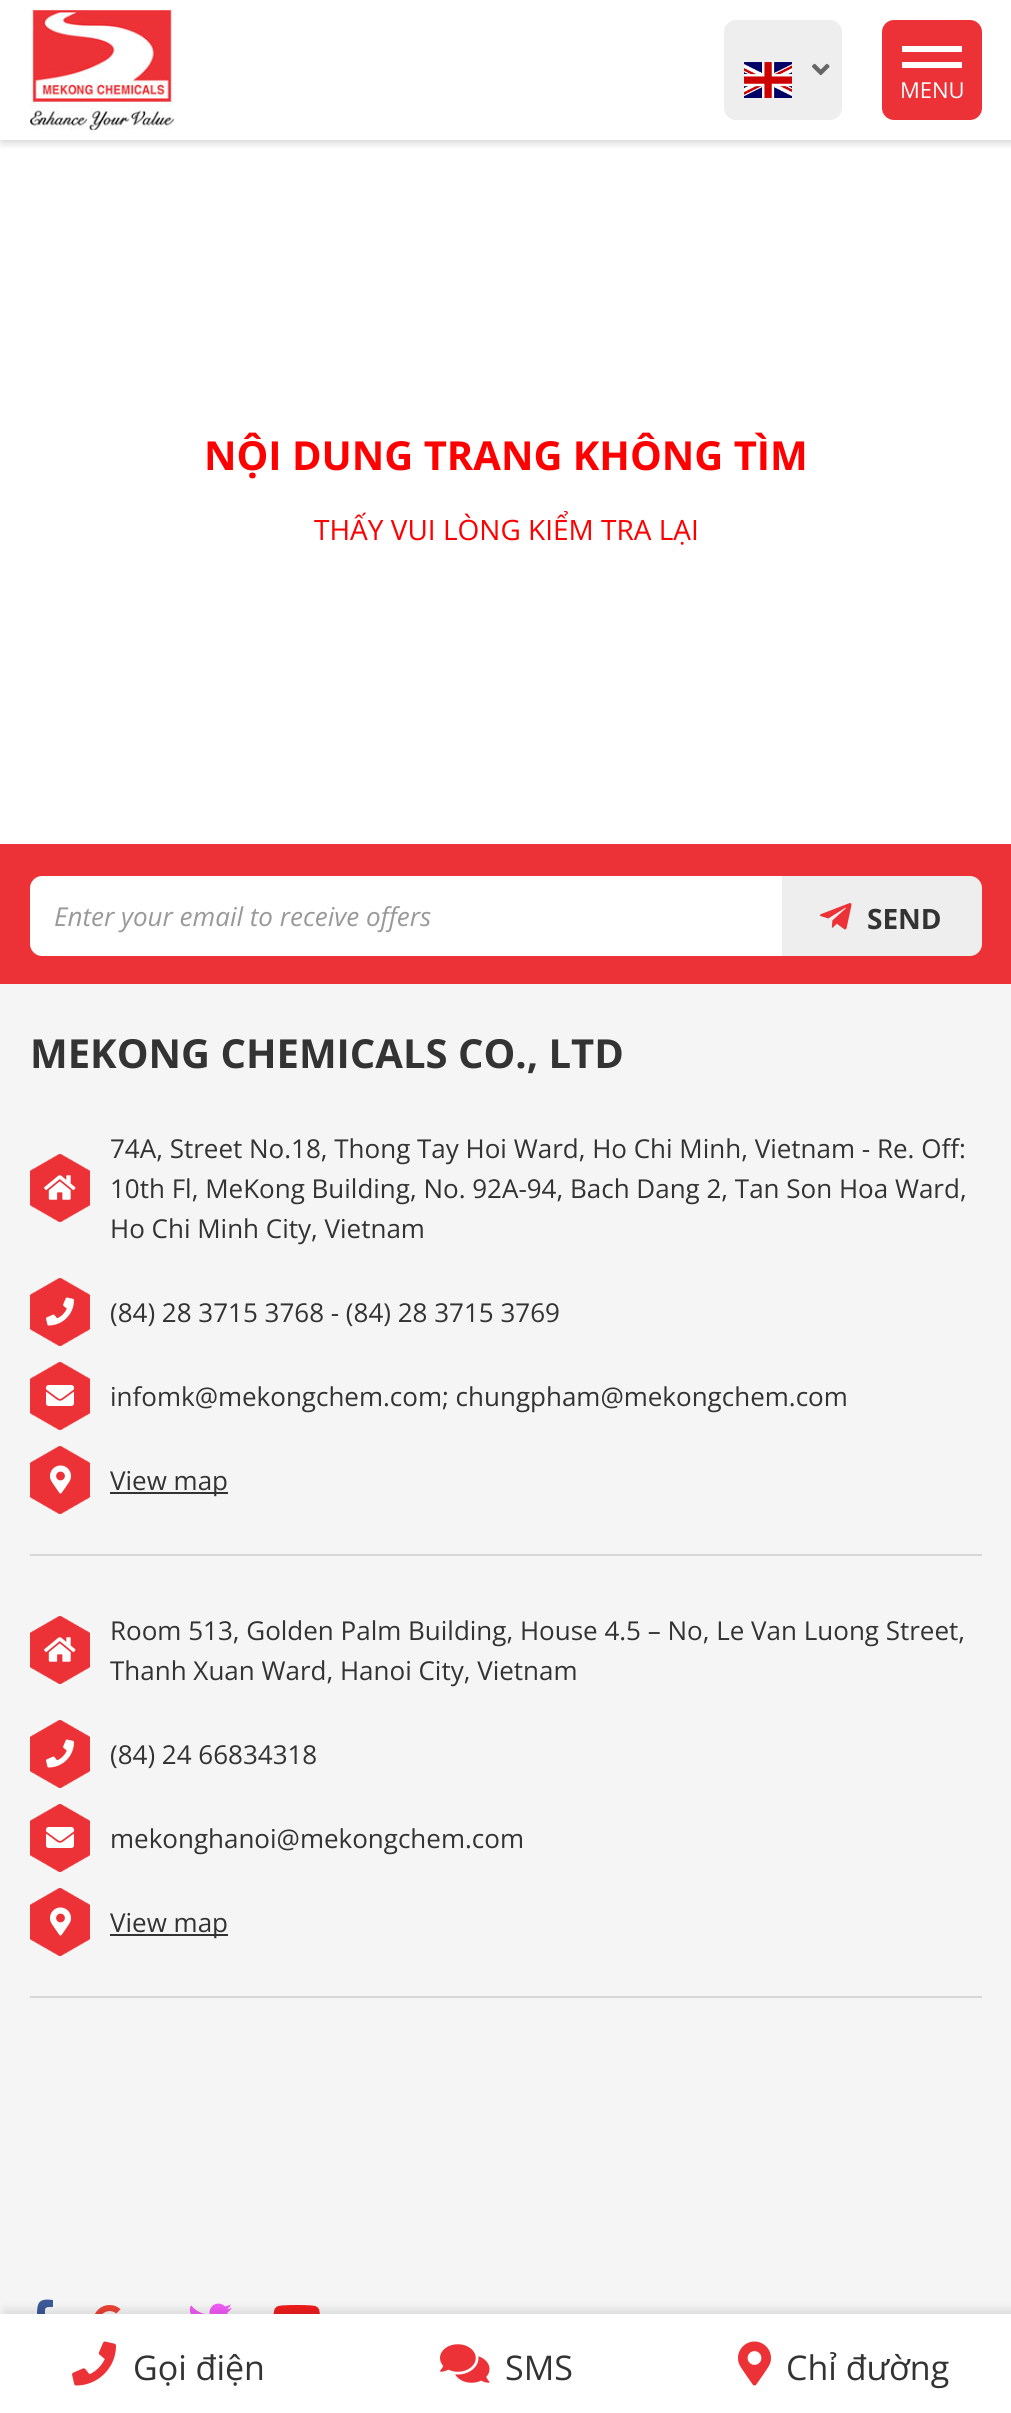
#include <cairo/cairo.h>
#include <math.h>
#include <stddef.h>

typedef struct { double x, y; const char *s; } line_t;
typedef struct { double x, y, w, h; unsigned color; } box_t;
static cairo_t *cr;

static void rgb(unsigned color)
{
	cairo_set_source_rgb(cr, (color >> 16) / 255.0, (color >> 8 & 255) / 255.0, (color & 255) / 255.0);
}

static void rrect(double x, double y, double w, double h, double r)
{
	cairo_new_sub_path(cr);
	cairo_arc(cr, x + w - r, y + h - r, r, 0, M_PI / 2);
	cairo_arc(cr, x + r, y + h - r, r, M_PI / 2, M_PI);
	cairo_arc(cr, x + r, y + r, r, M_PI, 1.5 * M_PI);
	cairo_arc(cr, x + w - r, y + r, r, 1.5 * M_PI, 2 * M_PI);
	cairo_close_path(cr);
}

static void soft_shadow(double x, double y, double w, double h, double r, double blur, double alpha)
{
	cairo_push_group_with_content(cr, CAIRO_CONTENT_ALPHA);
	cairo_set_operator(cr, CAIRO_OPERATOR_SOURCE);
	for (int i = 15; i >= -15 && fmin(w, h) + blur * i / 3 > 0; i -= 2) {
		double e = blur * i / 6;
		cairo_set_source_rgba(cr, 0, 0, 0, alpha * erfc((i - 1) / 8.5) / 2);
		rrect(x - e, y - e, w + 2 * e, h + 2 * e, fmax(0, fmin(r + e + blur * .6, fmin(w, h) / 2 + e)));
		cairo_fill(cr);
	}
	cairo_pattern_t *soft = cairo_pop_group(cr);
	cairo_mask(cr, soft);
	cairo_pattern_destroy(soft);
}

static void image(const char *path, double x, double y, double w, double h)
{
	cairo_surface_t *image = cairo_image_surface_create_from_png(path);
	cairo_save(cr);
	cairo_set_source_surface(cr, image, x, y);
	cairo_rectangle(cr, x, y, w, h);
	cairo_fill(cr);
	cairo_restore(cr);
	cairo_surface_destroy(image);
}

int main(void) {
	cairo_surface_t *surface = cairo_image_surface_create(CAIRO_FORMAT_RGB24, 1011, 2413);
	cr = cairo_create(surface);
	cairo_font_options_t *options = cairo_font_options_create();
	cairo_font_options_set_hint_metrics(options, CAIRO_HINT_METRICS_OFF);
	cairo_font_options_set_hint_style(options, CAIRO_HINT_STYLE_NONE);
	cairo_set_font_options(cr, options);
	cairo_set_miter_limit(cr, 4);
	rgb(0xffffff);
	cairo_paint(cr);
	cairo_save(cr);
	cairo_rectangle(cr, 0, 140, 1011, 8);
	cairo_clip(cr);
	rgb(0x000000);
	soft_shadow(2, 2, 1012, 140, 0, 5, 0.2);
	cairo_restore(cr);
	image("img/1.png", 30, 10, 144, 120);
	rgb(0xeeeeee);
	rrect(724, 20, 118, 100, 12);
	cairo_fill(cr);
	image("img/2.png", 744, 62, 48, 36);
	image("img/3.png", 812, 63, 18, 13);
	rgb(0xec3237);
	rrect(882, 20, 100, 100, 12);
	cairo_fill(cr);
	{
		static const box_t items[] = {
			{902, 46, 60, 6, 0xffffff},
			{902, 62, 60, 6, 0xffffff},
			{0, 844, 1011, 140, 0xec3237},
		};
		for (size_t i = 0; i < sizeof items / sizeof *items; i++) {
			rgb(items[i].color);
			cairo_rectangle(cr, items[i].x, items[i].y, items[i].w, items[i].h);
			cairo_fill(cr);
		}
	}
	rgb(0xeeeeee);
	cairo_new_path(cr);
	cairo_move_to(cr, 780, 876);
	cairo_line_to(cr, 970, 876);
	cairo_curve_to(cr, 976.5, 876, 982, 881.5, 982, 888);
	cairo_line_to(cr, 982, 944);
	cairo_curve_to(cr, 982, 950.5, 976.5, 956, 970, 956);
	cairo_line_to(cr, 780, 956);
	cairo_close_path(cr);
	cairo_fill(cr);
	rgb(0xffffff);
	cairo_new_path(cr);
	cairo_move_to(cr, 42, 876);
	cairo_line_to(cr, 782, 876);
	cairo_line_to(cr, 782, 956);
	cairo_line_to(cr, 42, 956);
	cairo_curve_to(cr, 35.5, 956, 30, 950.5, 30, 944);
	cairo_line_to(cr, 30, 888);
	cairo_curve_to(cr, 30, 881.5, 35.5, 876, 42, 876);
	cairo_close_path(cr);
	cairo_fill(cr);
	image("img/4.png", 820, 903, 32, 27);
	rgb(0xf5f5f5);
	cairo_rectangle(cr, 0, 984, 1011, 1330);
	cairo_fill(cr);
	image("img/5.png", 30, 1154, 60, 68);
	image("img/6.png", 44, 1175, 32, 25);
	image("img/5.png", 30, 1278, 60, 68);
	image("img/7.png", 46, 1297, 28, 29);
	image("img/5.png", 30, 1362, 60, 68);
	image("img/8.png", 46, 1385, 28, 21);
	image("img/5.png", 30, 1446, 60, 68);
	image("img/9.png", 50, 1465, 21, 29);
	rgb(0x333333);
	cairo_rectangle(cr, 110, 1492, 118, 2);
	cairo_fill(cr);
	rgb(0xd7d7d7);
	cairo_rectangle(cr, 30, 1554, 952, 2);
	cairo_fill(cr);
	image("img/5.png", 30, 1616, 60, 68);
	image("img/6.png", 44, 1637, 32, 25);
	image("img/5.png", 30, 1720, 60, 68);
	image("img/7.png", 46, 1739, 28, 29);
	image("img/5.png", 30, 1804, 60, 68);
	image("img/8.png", 46, 1827, 28, 21);
	image("img/5.png", 30, 1888, 60, 68);
	image("img/9.png", 50, 1907, 21, 29);
	rgb(0x333333);
	cairo_rectangle(cr, 110, 1934, 118, 2);
	cairo_fill(cr);
	rgb(0xd7d7d7);
	cairo_rectangle(cr, 30, 1996, 952, 2);
	cairo_fill(cr);
	rgb(0x3b5998);
	cairo_new_path(cr);
	cairo_move_to(cr, 37, 2344);
	cairo_line_to(cr, 37, 2324);
	cairo_line_to(cr, 30, 2324);
	cairo_line_to(cr, 30, 2316);
	cairo_line_to(cr, 37, 2316);
	cairo_curve_to(cr, 37, 2303, 38, 2298, 53, 2300);
	cairo_line_to(cr, 53, 2307);
	cairo_curve_to(cr, 44, 2307, 45, 2307, 45, 2316);
	cairo_line_to(cr, 52, 2316);
	cairo_line_to(cr, 51, 2324);
	cairo_line_to(cr, 45, 2324);
	cairo_line_to(cr, 45, 2344);
	cairo_close_path(cr);
	cairo_fill(cr);
	image("img/10.png", 95, 2305, 26, 9);
	image("img/11.png", 189, 2303, 43, 11);
	image("img/12.png", 273, 2305, 47, 9);
	rgb(0x000000);
	soft_shadow(4, 2310, 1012, 100, 0, 5, 0.12);
	rgb(0xffffff);
	cairo_rectangle(cr, 0, 2314, 1011, 99);
	cairo_fill(cr);
	image("img/13.png", 72, 2341, 44, 45);
	image("img/14.png", 440, 2344, 50, 39);
	image("img/15.png", 738, 2341, 33, 45);
	cairo_select_font_face(cr, "Open Sans", CAIRO_FONT_SLANT_NORMAL, CAIRO_FONT_WEIGHT_NORMAL);
	cairo_set_font_size(cr, 22);
	cairo_move_to(cr, 900, 98);
	cairo_show_text(cr, "MENU");
	cairo_select_font_face(cr, "Open Sans", CAIRO_FONT_SLANT_NORMAL, CAIRO_FONT_WEIGHT_BOLD);
	cairo_set_font_size(cr, 40);
	rgb(0xff0000);
	cairo_move_to(cr, 204, 470);
	cairo_show_text(cr, "NỘI DUNG TRANG KHÔNG TÌM");
	cairo_select_font_face(cr, "Open Sans", CAIRO_FONT_SLANT_NORMAL, CAIRO_FONT_WEIGHT_NORMAL);
	cairo_set_font_size(cr, 28);
	cairo_move_to(cr, 314, 540);
	cairo_show_text(cr, "THẤY VUI LÒNG KIỂM TRA LẠI");
	cairo_select_font_face(cr, "Open Sans", CAIRO_FONT_SLANT_ITALIC, CAIRO_FONT_WEIGHT_NORMAL);
	cairo_set_font_size(cr, 26);
	rgb(0x999999);
	cairo_move_to(cr, 54, 926);
	cairo_show_text(cr, "Enter your email to receive offers");
	cairo_select_font_face(cr, "Open Sans", CAIRO_FONT_SLANT_NORMAL, CAIRO_FONT_WEIGHT_BOLD);
	cairo_set_font_size(cr, 28);
	rgb(0x333333);
	cairo_move_to(cr, 867, 929);
	cairo_show_text(cr, "SEND");
	cairo_set_font_size(cr, 40);
	cairo_move_to(cr, 30, 1068);
	cairo_show_text(cr, "MEKONG CHEMICALS CO., LTD");
	cairo_select_font_face(cr, "Open Sans", CAIRO_FONT_SLANT_NORMAL, CAIRO_FONT_WEIGHT_NORMAL);
	cairo_set_font_size(cr, 26);
	{
		static const line_t items[] = {
			{110, 1158, "74A, Street No.18, Thong Tay Hoi Ward, Ho Chi Minh, Vietnam - Re. Off:"},
			{110, 1198, "10th Fl, MeKong Building, No. 92A-94, Bach Dang 2, Tan Son Hoa Ward,"},
			{110, 1238, "Ho Chi Minh City, Vietnam"},
			{110, 1322, "(84) 28 3715 3768 - (84) 28 3715 3769"},
			{110, 1406, "infomk@mekongchem.com; chungpham@mekongchem.com"},
			{110, 1490, "View map"},
			{110, 1640, "Room 513, Golden Palm Building, House 4.5 – No, Le Van Luong Street,"},
			{110, 1680, "Thanh Xuan Ward, Hanoi City, Vietnam"},
			{110, 1764, "(84) 24 66834318"},
			{110, 1848, "mekonghanoi@mekongchem.com"},
			{110, 1932, "View map"},
		};
		for (size_t i = 0; i < sizeof items / sizeof *items; i++) {
			cairo_move_to(cr, items[i].x, items[i].y);
			cairo_show_text(cr, items[i].s);
		}
	}
	cairo_set_font_size(cr, 34);
	{
		static const line_t items[] = {
			{133, 2380, "Gọi điện"},
			{505, 2380, "SMS"},
			{786, 2380, "Chỉ đường"},
		};
		for (size_t i = 0; i < sizeof items / sizeof *items; i++) {
			cairo_move_to(cr, items[i].x, items[i].y);
			cairo_show_text(cr, items[i].s);
		}
	}
	cairo_surface_write_to_png(surface, "page.png");
	cairo_font_options_destroy(options);
	cairo_destroy(cr);
	cairo_surface_destroy(surface);
	return 0;
}
